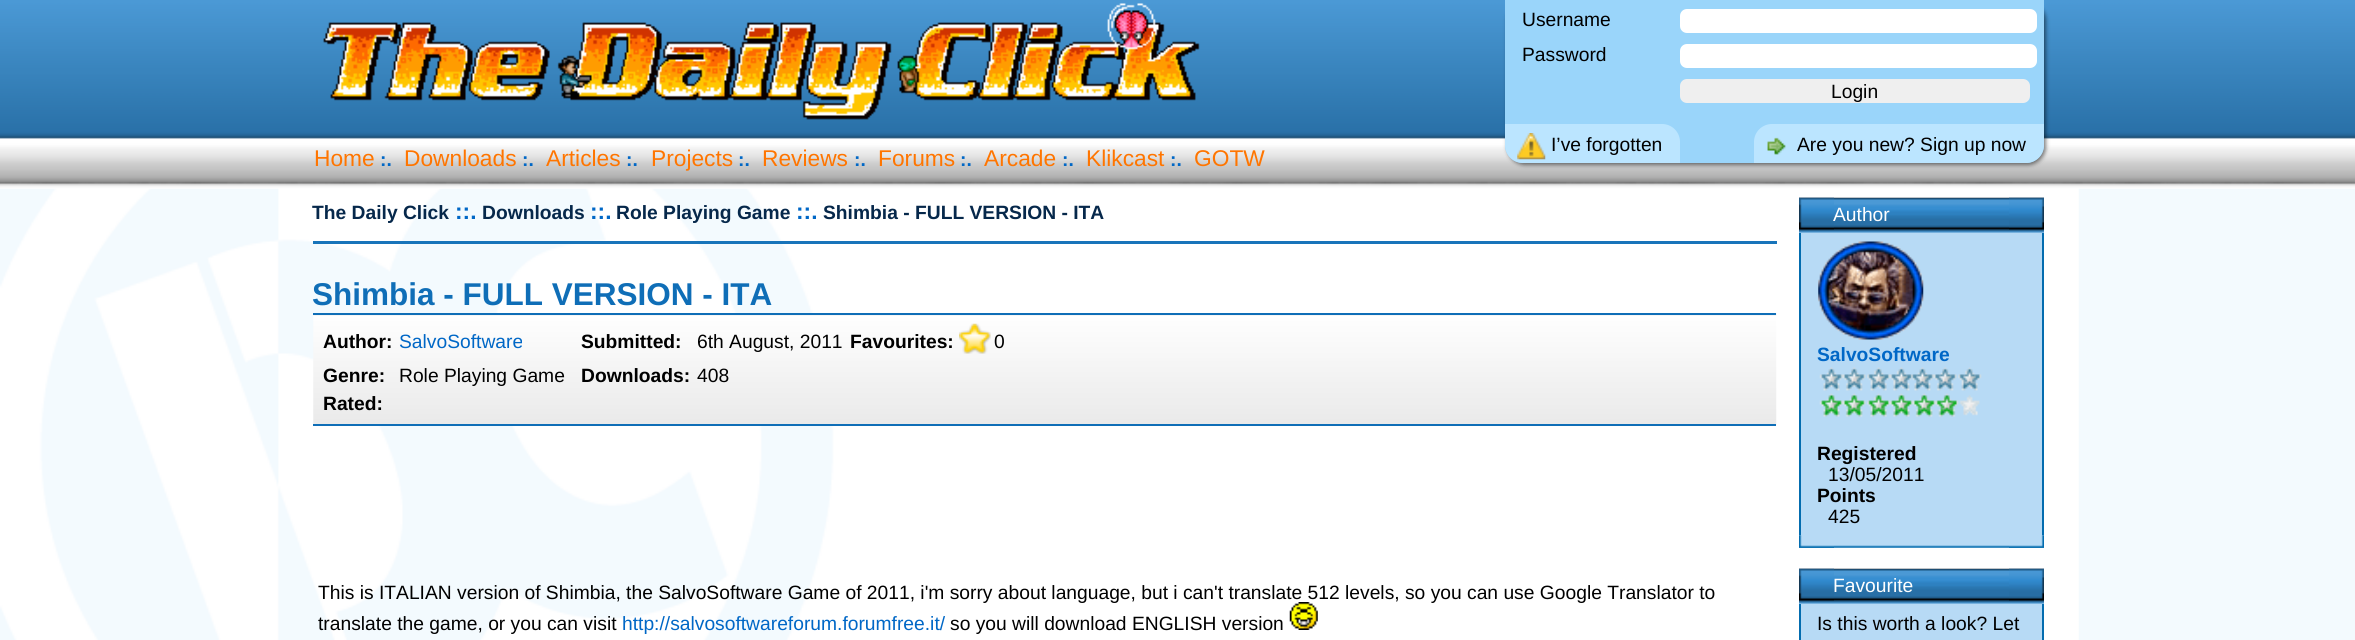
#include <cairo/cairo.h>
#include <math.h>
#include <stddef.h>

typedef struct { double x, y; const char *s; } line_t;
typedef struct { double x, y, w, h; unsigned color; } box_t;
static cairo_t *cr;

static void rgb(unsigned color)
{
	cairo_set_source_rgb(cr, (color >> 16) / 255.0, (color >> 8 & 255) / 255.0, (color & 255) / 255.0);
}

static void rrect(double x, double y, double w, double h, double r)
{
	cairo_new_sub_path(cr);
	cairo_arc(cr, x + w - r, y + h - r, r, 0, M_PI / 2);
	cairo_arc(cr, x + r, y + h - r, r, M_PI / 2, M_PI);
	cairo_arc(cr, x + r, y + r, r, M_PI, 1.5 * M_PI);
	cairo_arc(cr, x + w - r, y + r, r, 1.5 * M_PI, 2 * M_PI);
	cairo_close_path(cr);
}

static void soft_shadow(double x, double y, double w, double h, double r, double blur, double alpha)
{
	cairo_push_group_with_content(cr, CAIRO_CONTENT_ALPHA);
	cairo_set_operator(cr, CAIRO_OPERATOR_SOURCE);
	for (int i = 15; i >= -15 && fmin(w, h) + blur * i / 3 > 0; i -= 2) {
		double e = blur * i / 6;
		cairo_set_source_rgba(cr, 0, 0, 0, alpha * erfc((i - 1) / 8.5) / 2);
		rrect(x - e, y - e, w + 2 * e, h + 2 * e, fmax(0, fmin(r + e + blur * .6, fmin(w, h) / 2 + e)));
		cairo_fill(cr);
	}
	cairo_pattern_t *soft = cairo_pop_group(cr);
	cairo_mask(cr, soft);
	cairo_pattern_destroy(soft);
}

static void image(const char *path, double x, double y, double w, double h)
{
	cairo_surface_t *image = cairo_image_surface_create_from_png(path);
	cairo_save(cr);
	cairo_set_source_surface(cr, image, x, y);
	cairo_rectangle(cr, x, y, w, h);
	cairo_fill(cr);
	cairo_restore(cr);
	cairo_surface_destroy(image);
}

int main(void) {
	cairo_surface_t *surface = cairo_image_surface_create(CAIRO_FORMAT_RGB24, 2355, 640);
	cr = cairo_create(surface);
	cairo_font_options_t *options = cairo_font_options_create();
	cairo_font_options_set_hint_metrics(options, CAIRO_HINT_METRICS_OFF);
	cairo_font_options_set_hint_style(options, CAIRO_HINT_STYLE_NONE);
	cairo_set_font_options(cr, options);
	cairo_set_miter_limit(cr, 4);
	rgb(0xf3fafe);
	cairo_paint(cr);
	image("img/1.png", 0, 188, 2079, 452);
	image("img/2.png", 0, 0, 2355, 189);
	image("img/3.png", 323, 3, 877, 117);
	rgb(0x000000);
	soft_shadow(1507, 2, 539, 163, 18, 2, 0.5);
	rgb(0x9ad5fa);
	cairo_new_path(cr);
	cairo_move_to(cr, 1505, 0);
	cairo_line_to(cr, 2044, 0);
	cairo_line_to(cr, 2044, 145);
	cairo_curve_to(cr, 2044, 155, 2036, 163, 2026, 163);
	cairo_line_to(cr, 1523, 163);
	cairo_curve_to(cr, 1513, 163, 1505, 155, 1505, 145);
	cairo_close_path(cr);
	cairo_fill(cr);
	rgb(0xffffff);
	rrect(1680, 9, 357, 24, 7);
	cairo_fill(cr);
	rrect(1680, 44, 357, 24, 7);
	cairo_fill(cr);
	rgb(0xefefef);
	rrect(1680, 79, 350, 24, 7);
	cairo_fill(cr);
	rgb(0xbbe5ff);
	cairo_new_path(cr);
	cairo_move_to(cr, 1505, 124);
	cairo_line_to(cr, 1662, 124);
	cairo_curve_to(cr, 1672, 124, 1680, 132, 1680, 142);
	cairo_line_to(cr, 1680, 163);
	cairo_line_to(cr, 1523, 163);
	cairo_curve_to(cr, 1513, 163, 1505, 155, 1505, 145);
	cairo_close_path(cr);
	cairo_fill(cr);
	image("img/4.png", 1517, 133, 29, 27);
	cairo_new_path(cr);
	cairo_move_to(cr, 1772, 124);
	cairo_line_to(cr, 2044, 124);
	cairo_line_to(cr, 2044, 145);
	cairo_curve_to(cr, 2044, 155, 2036, 163, 2026, 163);
	cairo_line_to(cr, 1754, 163);
	cairo_line_to(cr, 1754, 142);
	cairo_curve_to(cr, 1754, 132, 1762, 124, 1772, 124);
	cairo_close_path(cr);
	cairo_fill(cr);
	image("img/5.png", 1767, 137, 19, 18);
	cairo_set_source_rgba(cr, 0.031, 0.42, 0.71, 0.93);
	cairo_rectangle(cr, 313, 241, 1464, 3);
	cairo_fill(cr);
	image("img/6.png", 313, 313, 1464, 113);
	rgb(0x0f6eb7);
	cairo_rectangle(cr, 313, 313, 1463, 2);
	cairo_fill(cr);
	cairo_rectangle(cr, 313, 424, 1463, 2);
	cairo_fill(cr);
	image("img/7.png", 959, 323, 32, 31);
	image("img/9.png", 1799, 197, 245, 36);
	image("img/10.png", 1799, 197, 35, 33);
	image("img/11.png", 2009, 197, 35, 33);
	{
		static const box_t items[] = {
			{1801, 233, 241, 303, 0xb7daf5},
			{2042, 233, 2, 303, 0x036caf},
			{1799, 233, 2, 303, 0x036caf},
		};
		for (size_t i = 0; i < sizeof items / sizeof *items; i++) {
			rgb(items[i].color);
			cairo_rectangle(cr, items[i].x, items[i].y, items[i].w, items[i].h);
			cairo_fill(cr);
		}
	}
	image("img/12.png", 1818, 241, 106, 99);
	image("img/13.png", 1819, 367, 163, 50);
	image("img/14.png", 1799, 535, 245, 13);
	image("img/15.png", 1799, 535, 35, 13);
	image("img/16.png", 2009, 535, 35, 13);
	image("img/9.png", 1799, 568, 245, 36);
	image("img/17.png", 1799, 568, 35, 33);
	image("img/18.png", 2009, 568, 35, 33);
	{
		static const box_t items[] = {
			{1801, 604, 241, 36, 0xb7daf5},
			{2042, 604, 2, 36, 0x036caf},
			{1799, 604, 2, 36, 0x036caf},
		};
		for (size_t i = 0; i < sizeof items / sizeof *items; i++) {
			rgb(items[i].color);
			cairo_rectangle(cr, items[i].x, items[i].y, items[i].w, items[i].h);
			cairo_fill(cr);
		}
	}
	cairo_select_font_face(cr, "Liberation Sans", CAIRO_FONT_SLANT_NORMAL, CAIRO_FONT_WEIGHT_NORMAL);
	cairo_set_font_size(cr, 19.25);
	rgb(0x000000);
	{
		static const line_t items[] = {
			{1522, 26, "Username"},
			{1522, 61, "Password"},
			{1831, 98, "Login"},
			{1551, 151, "I’ve forgotten"},
			{1797, 151, "Are you new? Sign up now"},
		};
		for (size_t i = 0; i < sizeof items / sizeof *items; i++) {
			cairo_move_to(cr, items[i].x, items[i].y);
			cairo_show_text(cr, items[i].s);
		}
	}
	cairo_set_font_size(cr, 22.75);
	rgb(0xff7500);
	cairo_move_to(cr, 314, 166);
	cairo_show_text(cr, "Home");
	cairo_select_font_face(cr, "Liberation Sans", CAIRO_FONT_SLANT_NORMAL, CAIRO_FONT_WEIGHT_BOLD);
	cairo_set_font_size(cr, 19.25);
	rgb(0x0067c6);
	cairo_move_to(cr, 380, 166);
	cairo_show_text(cr, ":.");
	cairo_select_font_face(cr, "Liberation Sans", CAIRO_FONT_SLANT_NORMAL, CAIRO_FONT_WEIGHT_NORMAL);
	cairo_set_font_size(cr, 22.75);
	rgb(0xff7500);
	cairo_move_to(cr, 404, 166);
	cairo_show_text(cr, "Downloads");
	cairo_select_font_face(cr, "Liberation Sans", CAIRO_FONT_SLANT_NORMAL, CAIRO_FONT_WEIGHT_BOLD);
	cairo_set_font_size(cr, 19.25);
	rgb(0x0067c6);
	cairo_move_to(cr, 522, 166);
	cairo_show_text(cr, ":.");
	cairo_select_font_face(cr, "Liberation Sans", CAIRO_FONT_SLANT_NORMAL, CAIRO_FONT_WEIGHT_NORMAL);
	cairo_set_font_size(cr, 22.75);
	rgb(0xff7500);
	cairo_move_to(cr, 546, 166);
	cairo_show_text(cr, "Articles");
	cairo_select_font_face(cr, "Liberation Sans", CAIRO_FONT_SLANT_NORMAL, CAIRO_FONT_WEIGHT_BOLD);
	cairo_set_font_size(cr, 19.25);
	rgb(0x0067c6);
	cairo_move_to(cr, 626, 166);
	cairo_show_text(cr, ":.");
	cairo_select_font_face(cr, "Liberation Sans", CAIRO_FONT_SLANT_NORMAL, CAIRO_FONT_WEIGHT_NORMAL);
	cairo_set_font_size(cr, 22.75);
	rgb(0xff7500);
	cairo_move_to(cr, 651, 166);
	cairo_show_text(cr, "Projects");
	cairo_select_font_face(cr, "Liberation Sans", CAIRO_FONT_SLANT_NORMAL, CAIRO_FONT_WEIGHT_BOLD);
	cairo_set_font_size(cr, 19.25);
	rgb(0x0067c6);
	cairo_move_to(cr, 738, 166);
	cairo_show_text(cr, ":.");
	cairo_select_font_face(cr, "Liberation Sans", CAIRO_FONT_SLANT_NORMAL, CAIRO_FONT_WEIGHT_NORMAL);
	cairo_set_font_size(cr, 22.75);
	rgb(0xff7500);
	cairo_move_to(cr, 762, 166);
	cairo_show_text(cr, "Reviews");
	cairo_select_font_face(cr, "Liberation Sans", CAIRO_FONT_SLANT_NORMAL, CAIRO_FONT_WEIGHT_BOLD);
	cairo_set_font_size(cr, 19.25);
	rgb(0x0067c6);
	cairo_move_to(cr, 854, 166);
	cairo_show_text(cr, ":.");
	cairo_select_font_face(cr, "Liberation Sans", CAIRO_FONT_SLANT_NORMAL, CAIRO_FONT_WEIGHT_NORMAL);
	cairo_set_font_size(cr, 22.75);
	rgb(0xff7500);
	cairo_move_to(cr, 878, 166);
	cairo_show_text(cr, "Forums");
	cairo_select_font_face(cr, "Liberation Sans", CAIRO_FONT_SLANT_NORMAL, CAIRO_FONT_WEIGHT_BOLD);
	cairo_set_font_size(cr, 19.25);
	rgb(0x0067c6);
	cairo_move_to(cr, 960, 166);
	cairo_show_text(cr, ":.");
	cairo_select_font_face(cr, "Liberation Sans", CAIRO_FONT_SLANT_NORMAL, CAIRO_FONT_WEIGHT_NORMAL);
	cairo_set_font_size(cr, 22.75);
	rgb(0xff7500);
	cairo_move_to(cr, 984, 166);
	cairo_show_text(cr, "Arcade");
	cairo_select_font_face(cr, "Liberation Sans", CAIRO_FONT_SLANT_NORMAL, CAIRO_FONT_WEIGHT_BOLD);
	cairo_set_font_size(cr, 19.25);
	rgb(0x0067c6);
	cairo_move_to(cr, 1062, 166);
	cairo_show_text(cr, ":.");
	cairo_select_font_face(cr, "Liberation Sans", CAIRO_FONT_SLANT_NORMAL, CAIRO_FONT_WEIGHT_NORMAL);
	cairo_set_font_size(cr, 22.75);
	rgb(0xff7500);
	cairo_move_to(cr, 1086, 166);
	cairo_show_text(cr, "Klikcast");
	cairo_select_font_face(cr, "Liberation Sans", CAIRO_FONT_SLANT_NORMAL, CAIRO_FONT_WEIGHT_BOLD);
	cairo_set_font_size(cr, 19.25);
	rgb(0x0067c6);
	cairo_move_to(cr, 1170, 166);
	cairo_show_text(cr, ":.");
	cairo_select_font_face(cr, "Liberation Sans", CAIRO_FONT_SLANT_NORMAL, CAIRO_FONT_WEIGHT_NORMAL);
	cairo_set_font_size(cr, 22.75);
	rgb(0xff7500);
	cairo_move_to(cr, 1194, 166);
	cairo_show_text(cr, "GOTW");
	cairo_select_font_face(cr, "Liberation Sans", CAIRO_FONT_SLANT_NORMAL, CAIRO_FONT_WEIGHT_BOLD);
	cairo_set_font_size(cr, 19.25);
	rgb(0x06284b);
	cairo_move_to(cr, 312, 219);
	cairo_show_text(cr, "The Daily Click");
	cairo_set_font_size(cr, 22.75);
	rgb(0x0067c6);
	cairo_move_to(cr, 455, 219);
	cairo_show_text(cr, "::.");
	cairo_set_font_size(cr, 19.25);
	rgb(0x06284b);
	cairo_move_to(cr, 482, 219);
	cairo_show_text(cr, "Downloads");
	cairo_set_font_size(cr, 22.75);
	rgb(0x0067c6);
	cairo_move_to(cr, 590, 219);
	cairo_show_text(cr, "::.");
	cairo_set_font_size(cr, 19.25);
	rgb(0x06284b);
	cairo_move_to(cr, 616, 219);
	cairo_show_text(cr, "Role Playing Game");
	cairo_set_font_size(cr, 22.75);
	rgb(0x0067c6);
	cairo_move_to(cr, 796, 219);
	cairo_show_text(cr, "::.");
	cairo_set_font_size(cr, 19.25);
	rgb(0x06284b);
	cairo_move_to(cr, 823, 219);
	cairo_show_text(cr, "Shimbia - FULL VERSION - ITA");
	cairo_set_font_size(cr, 31.5);
	rgb(0x0f6eb7);
	cairo_move_to(cr, 312, 305);
	cairo_show_text(cr, "Shimbia - FULL VERSION - ITA");
	cairo_set_font_size(cr, 19.25);
	rgb(0x000000);
	cairo_move_to(cr, 323, 348);
	cairo_show_text(cr, "Author:");
	cairo_select_font_face(cr, "Liberation Sans", CAIRO_FONT_SLANT_NORMAL, CAIRO_FONT_WEIGHT_NORMAL);
	rgb(0x0067c6);
	cairo_move_to(cr, 399, 348);
	cairo_show_text(cr, "SalvoSoftware");
	cairo_select_font_face(cr, "Liberation Sans", CAIRO_FONT_SLANT_NORMAL, CAIRO_FONT_WEIGHT_BOLD);
	rgb(0x000000);
	cairo_move_to(cr, 581, 348);
	cairo_show_text(cr, "Submitted:");
	cairo_select_font_face(cr, "Liberation Sans", CAIRO_FONT_SLANT_NORMAL, CAIRO_FONT_WEIGHT_NORMAL);
	cairo_move_to(cr, 697, 348);
	cairo_show_text(cr, "6th August, 2011");
	cairo_select_font_face(cr, "Liberation Sans", CAIRO_FONT_SLANT_NORMAL, CAIRO_FONT_WEIGHT_BOLD);
	cairo_move_to(cr, 850, 348);
	cairo_show_text(cr, "Favourites:");
	cairo_select_font_face(cr, "Liberation Sans", CAIRO_FONT_SLANT_NORMAL, CAIRO_FONT_WEIGHT_NORMAL);
	cairo_move_to(cr, 994, 348);
	cairo_show_text(cr, "0");
	cairo_select_font_face(cr, "Liberation Sans", CAIRO_FONT_SLANT_NORMAL, CAIRO_FONT_WEIGHT_BOLD);
	cairo_move_to(cr, 323, 382);
	cairo_show_text(cr, "Genre:");
	cairo_select_font_face(cr, "Liberation Sans", CAIRO_FONT_SLANT_NORMAL, CAIRO_FONT_WEIGHT_NORMAL);
	cairo_move_to(cr, 399, 382);
	cairo_show_text(cr, "Role Playing Game");
	cairo_select_font_face(cr, "Liberation Sans", CAIRO_FONT_SLANT_NORMAL, CAIRO_FONT_WEIGHT_BOLD);
	cairo_move_to(cr, 581, 382);
	cairo_show_text(cr, "Downloads:");
	cairo_select_font_face(cr, "Liberation Sans", CAIRO_FONT_SLANT_NORMAL, CAIRO_FONT_WEIGHT_NORMAL);
	cairo_move_to(cr, 697, 382);
	cairo_show_text(cr, "408");
	cairo_select_font_face(cr, "Liberation Sans", CAIRO_FONT_SLANT_NORMAL, CAIRO_FONT_WEIGHT_BOLD);
	cairo_move_to(cr, 323, 410);
	cairo_show_text(cr, "Rated:");
	cairo_select_font_face(cr, "Liberation Sans", CAIRO_FONT_SLANT_NORMAL, CAIRO_FONT_WEIGHT_NORMAL);
	cairo_move_to(cr, 318, 599);
	cairo_show_text(cr, "This is ITALIAN version of Shimbia, the SalvoSoftware Game of 2011, i'm sorry about language, but i can't translate 512 levels, so you can use Google Translator to");
	cairo_move_to(cr, 318, 630);
	cairo_show_text(cr, "translate the game, or you can visit");
	rgb(0x0067c6);
	cairo_move_to(cr, 622, 630);
	cairo_show_text(cr, "http://salvosoftwareforum.forumfree.it/");
	rgb(0x000000);
	cairo_move_to(cr, 950, 630);
	cairo_show_text(cr, "so you will download ENGLISH version");
	image("img/8.png", 1289, 602, 29, 28);
	rgb(0xffffff);
	cairo_move_to(cr, 1833, 221);
	cairo_show_text(cr, "Author");
	cairo_select_font_face(cr, "Liberation Sans", CAIRO_FONT_SLANT_NORMAL, CAIRO_FONT_WEIGHT_BOLD);
	rgb(0x0067c6);
	cairo_move_to(cr, 1817, 361);
	cairo_show_text(cr, "SalvoSoftware");
	rgb(0x000000);
	cairo_move_to(cr, 1817, 460);
	cairo_show_text(cr, "Registered");
	cairo_select_font_face(cr, "Liberation Sans", CAIRO_FONT_SLANT_NORMAL, CAIRO_FONT_WEIGHT_NORMAL);
	cairo_move_to(cr, 1828, 481);
	cairo_show_text(cr, "13/05/2011");
	cairo_select_font_face(cr, "Liberation Sans", CAIRO_FONT_SLANT_NORMAL, CAIRO_FONT_WEIGHT_BOLD);
	cairo_move_to(cr, 1817, 502);
	cairo_show_text(cr, "Points");
	cairo_select_font_face(cr, "Liberation Sans", CAIRO_FONT_SLANT_NORMAL, CAIRO_FONT_WEIGHT_NORMAL);
	cairo_move_to(cr, 1828, 523);
	cairo_show_text(cr, "425");
	rgb(0xffffff);
	cairo_move_to(cr, 1833, 592);
	cairo_show_text(cr, "Favourite");
	rgb(0x000000);
	cairo_move_to(cr, 1817, 630);
	cairo_show_text(cr, "Is this worth a look? Let");
	cairo_surface_write_to_png(surface, "page.png");
	cairo_font_options_destroy(options);
	cairo_destroy(cr);
	cairo_surface_destroy(surface);
	return 0;
}
